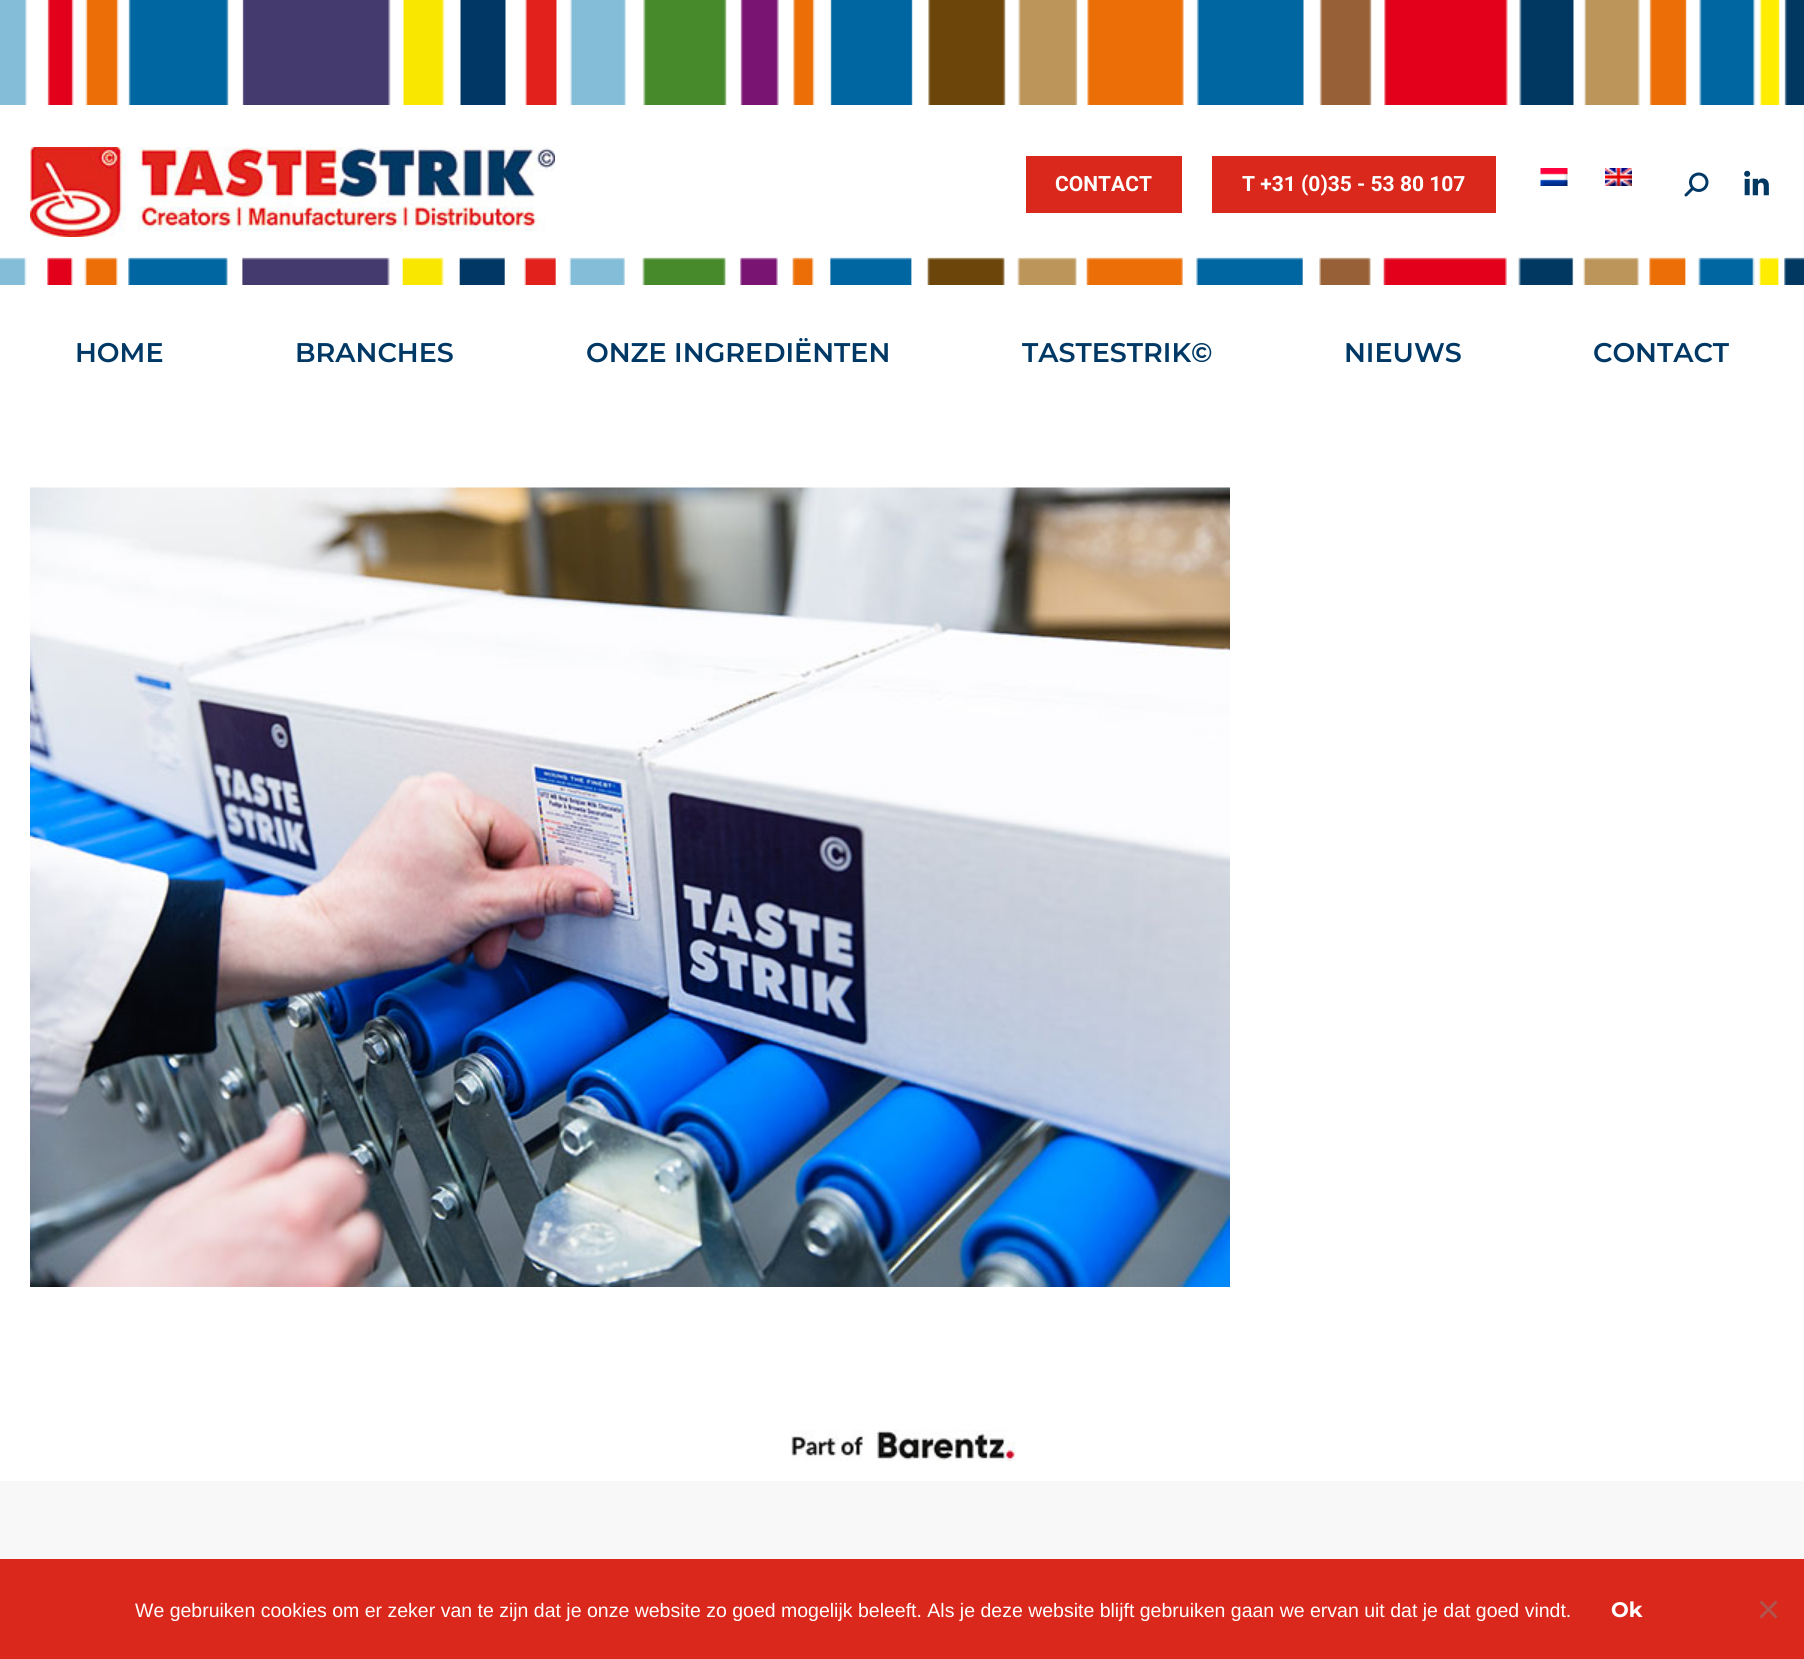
#include <cairo/cairo.h>
#include <math.h>
#include <stddef.h>

typedef struct { double x, y; const char *s; } line_t;
static cairo_t *cr;

static void rgb(unsigned color)
{
	cairo_set_source_rgb(cr, (color >> 16) / 255.0, (color >> 8 & 255) / 255.0, (color & 255) / 255.0);
}

static void image(const char *path, double x, double y, double w, double h)
{
	cairo_surface_t *image = cairo_image_surface_create_from_png(path);
	cairo_save(cr);
	cairo_set_source_surface(cr, image, x, y);
	cairo_rectangle(cr, x, y, w, h);
	cairo_fill(cr);
	cairo_restore(cr);
	cairo_surface_destroy(image);
}

int main(void) {
	cairo_surface_t *surface = cairo_image_surface_create(CAIRO_FORMAT_RGB24, 1804, 1659);
	cr = cairo_create(surface);
	cairo_font_options_t *options = cairo_font_options_create();
	cairo_font_options_set_hint_metrics(options, CAIRO_HINT_METRICS_OFF);
	cairo_font_options_set_hint_style(options, CAIRO_HINT_STYLE_NONE);
	cairo_set_font_options(cr, options);
	cairo_set_miter_limit(cr, 4);
	rgb(0xf8f8f9);
	cairo_paint(cr);
	rgb(0xffffff);
	cairo_rectangle(cr, 0, 0, 1804, 1481);
	cairo_fill(cr);
	image("img/1.png", 0, 257, 1804, 28);
	image("img/2.png", 0, 0, 1804, 105);
	image("img/3.png", 30, 147, 525, 90);
	rgb(0xda291c);
	cairo_rectangle(cr, 1026, 156, 156, 57);
	cairo_fill(cr);
	cairo_rectangle(cr, 1212, 156, 284, 57);
	cairo_fill(cr);
	image("img/4.png", 1540, 168, 28, 18);
	image("img/5.png", 1605, 168, 27, 18);
	image("img/6.png", 1684, 172, 25, 25);
	image("img/7.png", 1744, 170, 25, 26);
	image("img/8.png", 30, 487, 1200, 800);
	image("img/9.png", 790, 1429, 226, 32);
	cairo_rectangle(cr, 0, 1559, 1804, 100);
	cairo_fill(cr);
	rgb(0xad554e);
	cairo_new_path(cr);
	cairo_move_to(cr, 1775.5, 1600.5);
	cairo_line_to(cr, 1777.5, 1602.5);
	cairo_line_to(cr, 1761.5, 1618.5);
	cairo_line_to(cr, 1759.5, 1616.5);
	cairo_close_path(cr);
	cairo_fill(cr);
	cairo_new_path(cr);
	cairo_move_to(cr, 1759.5, 1602.5);
	cairo_line_to(cr, 1761.5, 1600.5);
	cairo_line_to(cr, 1777.5, 1616.5);
	cairo_line_to(cr, 1775.5, 1618.5);
	cairo_close_path(cr);
	cairo_fill(cr);
	cairo_select_font_face(cr, "Roboto", CAIRO_FONT_SLANT_NORMAL, CAIRO_FONT_WEIGHT_BOLD);
	cairo_set_font_size(cr, 21);
	rgb(0xffffff);
	cairo_move_to(cr, 1055, 191);
	cairo_show_text(cr, "CONTACT");
	cairo_move_to(cr, 1242, 191);
	cairo_show_text(cr, "T +31 (0)35 - 53 80 107");
	cairo_select_font_face(cr, "Montserrat SemiBold", CAIRO_FONT_SLANT_NORMAL, CAIRO_FONT_WEIGHT_NORMAL);
	cairo_set_font_size(cr, 27);
	rgb(0x003865);
	{
		static const line_t items[] = {
			{75, 362, "HOME"},
			{295, 362, "BRANCHES"},
			{586, 362, "ONZE INGREDIËNTEN"},
			{1022, 362, "TASTESTRIK©"},
			{1344, 362, "NIEUWS"},
			{1593, 362, "CONTACT"},
		};
		for (size_t i = 0; i < sizeof items / sizeof *items; i++) {
			cairo_move_to(cr, items[i].x, items[i].y);
			cairo_show_text(cr, items[i].s);
		}
	}
	cairo_select_font_face(cr, "Liberation Sans", CAIRO_FONT_SLANT_NORMAL, CAIRO_FONT_WEIGHT_NORMAL);
	cairo_set_font_size(cr, 19.5);
	rgb(0xffffff);
	cairo_move_to(cr, 135, 1617);
	cairo_show_text(cr, "We gebruiken cookies om er zeker van te zijn dat je onze website zo goed mogelijk beleeft. Als je deze website blijft gebruiken gaan we ervan uit dat je dat goed vindt.");
	cairo_select_font_face(cr, "Montserrat", CAIRO_FONT_SLANT_NORMAL, CAIRO_FONT_WEIGHT_BOLD);
	cairo_set_font_size(cr, 21);
	cairo_move_to(cr, 1611, 1617);
	cairo_show_text(cr, "Ok");
	cairo_surface_write_to_png(surface, "page.png");
	cairo_font_options_destroy(options);
	cairo_destroy(cr);
	cairo_surface_destroy(surface);
	return 0;
}
